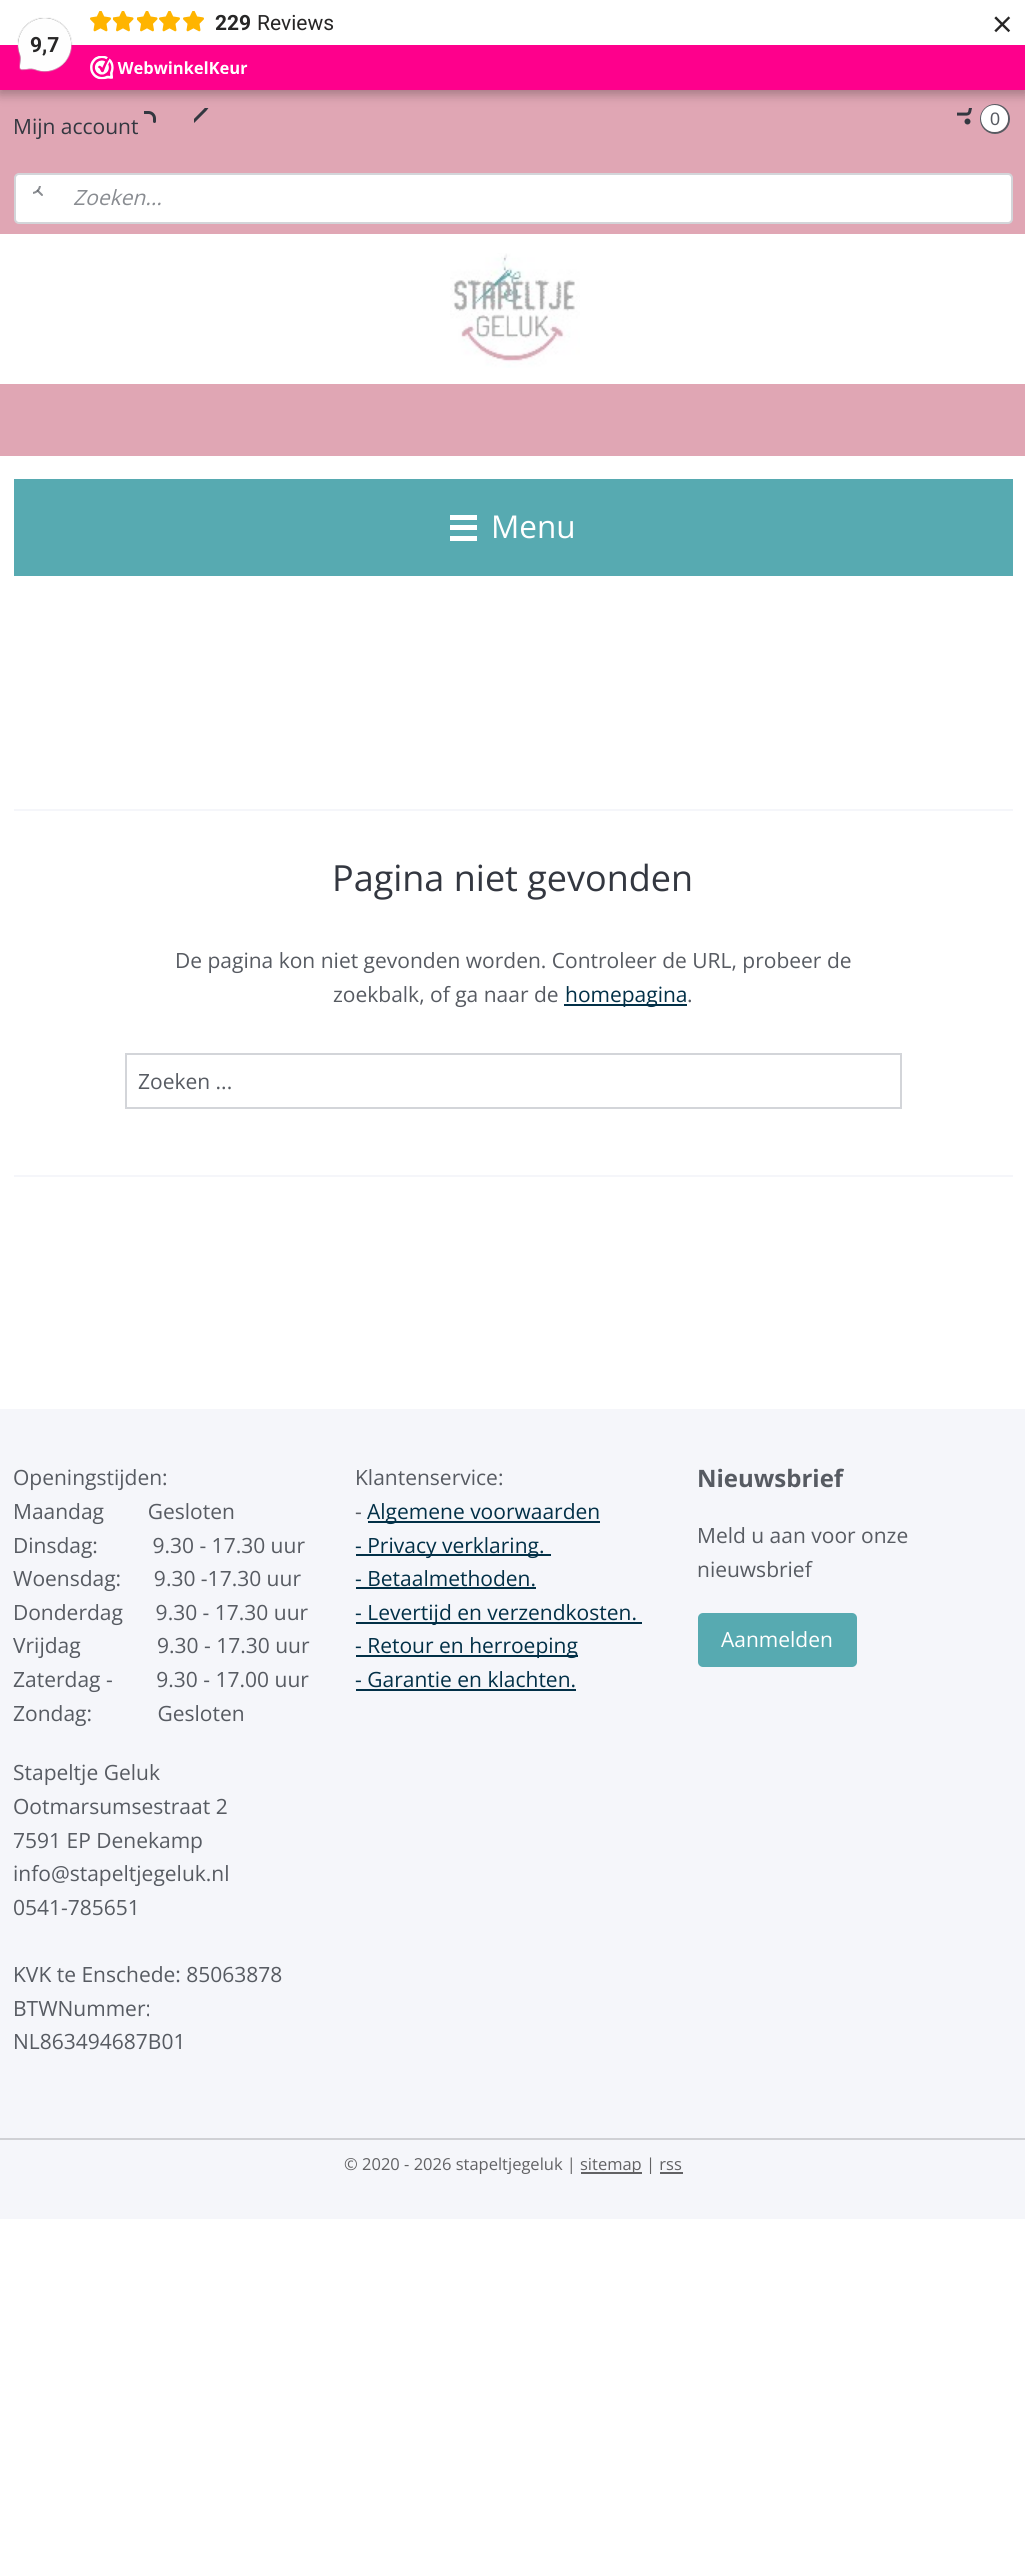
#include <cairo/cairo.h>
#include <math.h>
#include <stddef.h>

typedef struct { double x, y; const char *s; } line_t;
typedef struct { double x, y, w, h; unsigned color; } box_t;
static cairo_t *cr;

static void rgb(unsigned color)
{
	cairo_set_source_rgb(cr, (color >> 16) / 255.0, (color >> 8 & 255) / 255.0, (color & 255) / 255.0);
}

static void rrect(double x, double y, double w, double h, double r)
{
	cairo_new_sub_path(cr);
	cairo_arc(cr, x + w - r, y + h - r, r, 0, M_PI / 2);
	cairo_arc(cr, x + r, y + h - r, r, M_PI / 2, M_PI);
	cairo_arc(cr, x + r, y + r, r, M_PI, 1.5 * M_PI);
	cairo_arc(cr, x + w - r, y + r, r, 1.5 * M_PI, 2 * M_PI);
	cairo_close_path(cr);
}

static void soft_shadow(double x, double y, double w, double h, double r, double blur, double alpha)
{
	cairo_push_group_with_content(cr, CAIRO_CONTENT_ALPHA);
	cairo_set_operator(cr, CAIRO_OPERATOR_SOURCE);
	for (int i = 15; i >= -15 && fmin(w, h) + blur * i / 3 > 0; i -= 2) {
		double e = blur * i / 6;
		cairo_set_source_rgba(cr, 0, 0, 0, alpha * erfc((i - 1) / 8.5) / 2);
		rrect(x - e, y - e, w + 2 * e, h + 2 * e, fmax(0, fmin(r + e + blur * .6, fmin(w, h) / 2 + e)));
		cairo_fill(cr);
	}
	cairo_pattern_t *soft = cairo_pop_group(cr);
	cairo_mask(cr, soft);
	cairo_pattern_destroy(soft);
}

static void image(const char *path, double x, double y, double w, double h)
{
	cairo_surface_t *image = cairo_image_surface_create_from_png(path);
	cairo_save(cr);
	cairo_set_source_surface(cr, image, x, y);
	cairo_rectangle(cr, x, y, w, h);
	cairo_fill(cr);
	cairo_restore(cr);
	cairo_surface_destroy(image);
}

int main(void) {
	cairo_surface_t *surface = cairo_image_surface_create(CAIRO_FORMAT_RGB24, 1025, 2576);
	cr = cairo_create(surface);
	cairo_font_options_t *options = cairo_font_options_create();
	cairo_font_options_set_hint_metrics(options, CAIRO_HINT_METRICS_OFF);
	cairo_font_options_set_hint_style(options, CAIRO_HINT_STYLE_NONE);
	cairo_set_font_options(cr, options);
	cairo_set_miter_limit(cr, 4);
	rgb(0xffffff);
	cairo_paint(cr);
	rgb(0xe0a6b4);
	cairo_rectangle(cr, 0, 90, 1025, 144);
	cairo_fill(cr);
	image("img/5.png", 194, 108, 15, 15);
	image("img/7.png", 957, 108, 15, 17);
	cairo_arc(cr, 995, 119, 14, 0, 2 * M_PI);
	rgb(0x575b62);
	cairo_stroke(cr);
	rgb(0xffffff);
	cairo_arc(cr, 994.5, 118.5, 13.5, 0, 2 * M_PI);
	cairo_fill(cr);
	rgb(0x000000);
	soft_shadow(-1, -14, 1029, 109, 0, 4.5, 0.15);
	image("img/6.png", 144, 111, 12, 12);
	soft_shadow(0, 3, 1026, 90, 0, 7.5, 0.15);
	rgb(0xffffff);
	cairo_rectangle(cr, 0, 0, 1025, 45);
	cairo_fill(cr);
	image("img/1.png", 90, 11, 21, 21);
	image("img/2.png", 113, 11, 21, 21);
	image("img/2.png", 137, 11, 21, 21);
	image("img/1.png", 159, 11, 21, 21);
	image("img/1.png", 183, 11, 21, 21);
	rgb(0xfe008c);
	cairo_rectangle(cr, 0, 45, 1025, 45);
	cairo_fill(cr);
	image("img/3.png", 17, 17, 56, 56);
	image("img/4.png", 90, 56, 158, 24);
	rgb(0xffffff);
	rrect(15, 174, 997, 49, 4);
	cairo_fill_preserve(cr);
	rgb(0xd3d5d9);
	cairo_stroke(cr);
	image("img/8.png", 33, 186, 10, 10);
	image("img/9.png", 450, 253, 130, 115);
	{
		static const box_t items[] = {
			{0, 384, 1025, 72, 0xe0a6b4},
			{14, 479, 999, 97, 0x57aab1},
			{450, 525, 27, 5, 0xffffff},
			{450, 515, 27, 5, 0xffffff},
			{450, 536, 27, 5, 0xffffff},
			{14, 809, 999, 2, 0xf5f6fa},
			{14, 1175, 999, 2, 0xf5f6fa},
			{564, 1004, 123, 2, 0x023047},
		};
		for (size_t i = 0; i < sizeof items / sizeof *items; i++) {
			rgb(items[i].color);
			cairo_rectangle(cr, items[i].x, items[i].y, items[i].w, items[i].h);
			cairo_fill(cr);
		}
	}
	cairo_rectangle(cr, 126, 1054, 775, 54);
	rgb(0xd3d5d9);
	cairo_stroke(cr);
	{
		static const box_t items[] = {
			{0, 1409, 1025, 729, 0xf5f6fa},
			{368, 1521, 232, 2, 0x023047},
			{356, 1554, 195, 2, 0x023047},
			{356, 1587, 180, 2, 0x023047},
			{356, 1622, 286, 2, 0x023047},
			{356, 1655, 222, 2, 0x023047},
			{356, 1689, 220, 2, 0x023047},
		};
		for (size_t i = 0; i < sizeof items / sizeof *items; i++) {
			rgb(items[i].color);
			cairo_rectangle(cr, items[i].x, items[i].y, items[i].w, items[i].h);
			cairo_fill(cr);
		}
	}
	rgb(0x57aab1);
	rrect(698, 1613, 159, 54, 5);
	cairo_fill(cr);
	{
		static const box_t items[] = {
			{0, 2140, 1025, 79, 0xf5f6fa},
			{0, 2138, 1025, 2, 0xd0d1d5},
			{581, 2172, 61, 2, 0x626264},
			{660, 2172, 23, 2, 0x626264},
		};
		for (size_t i = 0; i < sizeof items / sizeof *items; i++) {
			rgb(items[i].color);
			cairo_rectangle(cr, items[i].x, items[i].y, items[i].w, items[i].h);
			cairo_fill(cr);
		}
	}
	cairo_select_font_face(cr, "Roboto", CAIRO_FONT_SLANT_NORMAL, CAIRO_FONT_WEIGHT_BOLD);
	cairo_set_font_size(cr, 21);
	rgb(0x272626);
	cairo_move_to(cr, 215, 30);
	cairo_show_text(cr, "229");
	cairo_select_font_face(cr, "Roboto", CAIRO_FONT_SLANT_NORMAL, CAIRO_FONT_WEIGHT_NORMAL);
	cairo_move_to(cr, 257, 30);
	cairo_show_text(cr, "Reviews");
	cairo_select_font_face(cr, "Open Sans", CAIRO_FONT_SLANT_NORMAL, CAIRO_FONT_WEIGHT_NORMAL);
	cairo_set_font_size(cr, 36);
	cairo_move_to(cr, 992, 37);
	cairo_show_text(cr, "×");
	cairo_select_font_face(cr, "Roboto", CAIRO_FONT_SLANT_NORMAL, CAIRO_FONT_WEIGHT_BOLD);
	cairo_set_font_size(cr, 21);
	cairo_move_to(cr, 30, 52);
	cairo_show_text(cr, "9,7");
	cairo_select_font_face(cr, "Open Sans", CAIRO_FONT_SLANT_NORMAL, CAIRO_FONT_WEIGHT_NORMAL);
	rgb(0x333740);
	cairo_move_to(cr, 13, 134);
	cairo_show_text(cr, "Mijn account");
	cairo_select_font_face(cr, "Liberation Sans", CAIRO_FONT_SLANT_NORMAL, CAIRO_FONT_WEIGHT_NORMAL);
	cairo_set_font_size(cr, 18);
	rgb(0x575b62);
	cairo_move_to(cr, 990, 125);
	cairo_show_text(cr, "0");
	cairo_select_font_face(cr, "Open Sans", CAIRO_FONT_SLANT_ITALIC, CAIRO_FONT_WEIGHT_NORMAL);
	cairo_set_font_size(cr, 21);
	rgb(0x898c91);
	cairo_move_to(cr, 73, 205);
	cairo_show_text(cr, "Zoeken...");
	cairo_select_font_face(cr, "Open Sans", CAIRO_FONT_SLANT_NORMAL, CAIRO_FONT_WEIGHT_NORMAL);
	cairo_set_font_size(cr, 31.5);
	rgb(0xffffff);
	cairo_move_to(cr, 491, 538);
	cairo_show_text(cr, "Menu");
	cairo_set_font_size(cr, 36);
	rgb(0x333740);
	cairo_move_to(cr, 332, 891);
	cairo_show_text(cr, "Pagina niet gevonden");
	cairo_set_font_size(cr, 21);
	rgb(0x575b62);
	cairo_move_to(cr, 175, 968);
	cairo_show_text(cr, "De pagina kon niet gevonden worden. Controleer de URL, probeer de");
	cairo_move_to(cr, 333, 1002);
	cairo_show_text(cr, "zoekbalk, of ga naar de");
	rgb(0x023047);
	cairo_move_to(cr, 565, 1002);
	cairo_show_text(cr, "homepagina");
	rgb(0x575b62);
	{
		static const line_t items[] = {
			{687, 1002, "."},
			{138, 1089, "Zoeken ..."},
			{13, 1485, "Openingstijden:"},
			{13, 1519, "Maandag        Gesloten"},
			{13, 1553, "Dinsdag:          9.30 - 17.30 uur"},
			{13, 1586, "Woensdag:      9.30 -17.30 uur"},
			{13, 1620, "Donderdag      9.30 - 17.30 uur"},
			{13, 1653, "Vrijdag              9.30 - 17.30 uur"},
			{13, 1687, "Zaterdag -        9.30 - 17.00 uur"},
			{13, 1721, "Zondag:            Gesloten"},
			{355, 1485, "Klantenservice:"},
			{355, 1519, "-"},
		};
		for (size_t i = 0; i < sizeof items / sizeof *items; i++) {
			cairo_move_to(cr, items[i].x, items[i].y);
			cairo_show_text(cr, items[i].s);
		}
	}
	rgb(0x023047);
	{
		static const line_t items[] = {
			{367, 1519, "Algemene voorwaarden"},
			{355, 1553, "- Privacy verklaring."},
			{355, 1586, "- Betaalmethoden."},
			{355, 1620, "- Levertijd en verzendkosten."},
			{355, 1653, "- Retour en herroeping"},
			{355, 1687, "- Garantie en klachten."},
		};
		for (size_t i = 0; i < sizeof items / sizeof *items; i++) {
			cairo_move_to(cr, items[i].x, items[i].y);
			cairo_show_text(cr, items[i].s);
		}
	}
	cairo_select_font_face(cr, "Open Sans", CAIRO_FONT_SLANT_NORMAL, CAIRO_FONT_WEIGHT_BOLD);
	cairo_set_font_size(cr, 24);
	rgb(0x575b62);
	cairo_move_to(cr, 697, 1487);
	cairo_show_text(cr, "Nieuwsbrief");
	cairo_select_font_face(cr, "Open Sans", CAIRO_FONT_SLANT_NORMAL, CAIRO_FONT_WEIGHT_NORMAL);
	cairo_set_font_size(cr, 21);
	cairo_move_to(cr, 697, 1543);
	cairo_show_text(cr, "Meld u aan voor onze");
	cairo_move_to(cr, 697, 1577);
	cairo_show_text(cr, "nieuwsbrief");
	rgb(0xffffff);
	cairo_move_to(cr, 721, 1647);
	cairo_show_text(cr, "Aanmelden");
	rgb(0x575b62);
	{
		static const line_t items[] = {
			{13, 1780, "Stapeltje Geluk"},
			{13, 1814, "Ootmarsumsestraat 2"},
			{13, 1848, "7591 EP Denekamp"},
			{13, 1881, "info@stapeltjegeluk.nl"},
			{13, 1915, "0541-785651"},
			{13, 1982, "KVK te Enschede: 85063878"},
			{13, 2016, "BTWNummer:"},
			{13, 2049, "NL863494687B01"},
		};
		for (size_t i = 0; i < sizeof items / sizeof *items; i++) {
			cairo_move_to(cr, items[i].x, items[i].y);
			cairo_show_text(cr, items[i].s);
		}
	}
	cairo_set_font_size(cr, 16.5);
	rgb(0x626264);
	{
		static const line_t items[] = {
			{344, 2170, "© 2020 - 2026 stapeltjegeluk |"},
			{580, 2170, "sitemap"},
			{646, 2170, "| rss"},
		};
		for (size_t i = 0; i < sizeof items / sizeof *items; i++) {
			cairo_move_to(cr, items[i].x, items[i].y);
			cairo_show_text(cr, items[i].s);
		}
	}
	cairo_surface_write_to_png(surface, "page.png");
	cairo_font_options_destroy(options);
	cairo_destroy(cr);
	cairo_surface_destroy(surface);
	return 0;
}
